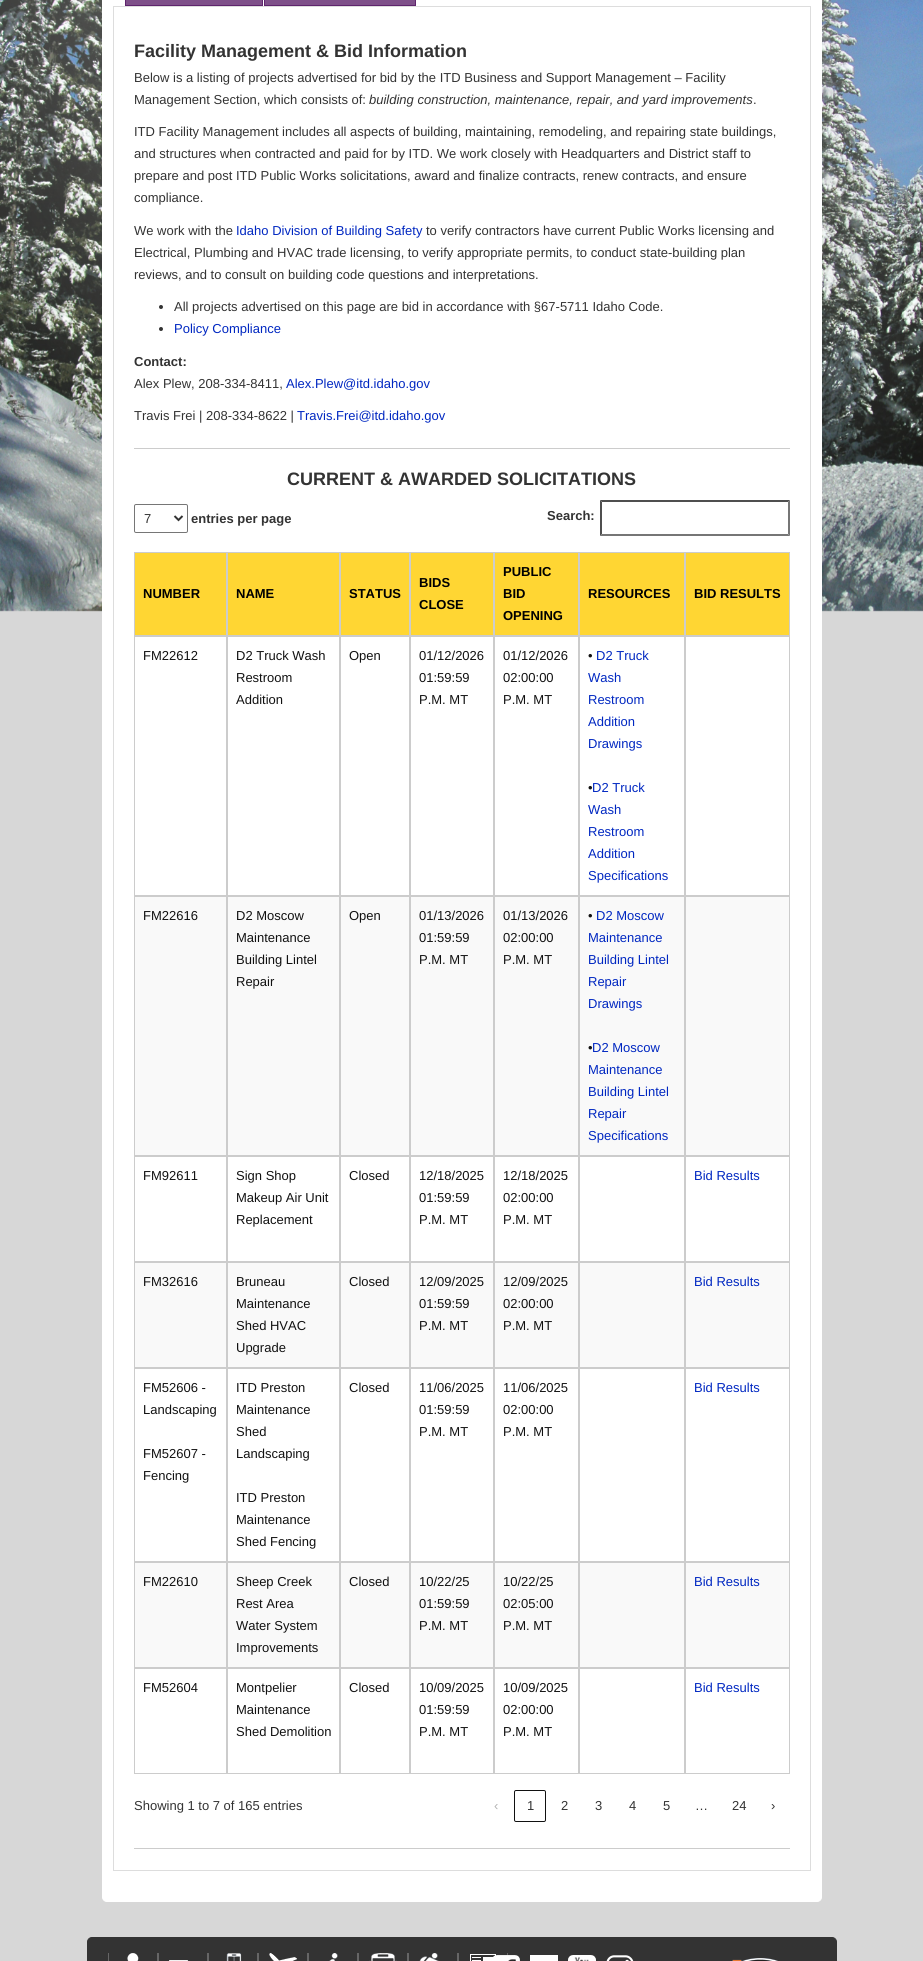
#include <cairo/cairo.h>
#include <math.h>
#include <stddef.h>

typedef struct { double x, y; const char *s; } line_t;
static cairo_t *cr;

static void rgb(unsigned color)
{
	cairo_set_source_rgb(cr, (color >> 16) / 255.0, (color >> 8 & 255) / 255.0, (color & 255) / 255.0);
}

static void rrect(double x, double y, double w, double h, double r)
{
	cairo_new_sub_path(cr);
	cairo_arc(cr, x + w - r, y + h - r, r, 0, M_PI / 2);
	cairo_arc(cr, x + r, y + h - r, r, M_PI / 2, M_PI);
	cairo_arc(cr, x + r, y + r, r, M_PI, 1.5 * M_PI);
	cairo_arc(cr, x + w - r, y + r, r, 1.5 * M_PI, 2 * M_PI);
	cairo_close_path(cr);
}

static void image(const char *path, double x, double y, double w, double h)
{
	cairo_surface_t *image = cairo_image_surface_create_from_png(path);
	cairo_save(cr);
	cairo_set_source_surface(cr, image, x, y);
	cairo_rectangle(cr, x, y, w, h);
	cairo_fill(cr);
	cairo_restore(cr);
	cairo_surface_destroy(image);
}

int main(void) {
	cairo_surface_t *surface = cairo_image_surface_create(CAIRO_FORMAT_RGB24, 923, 1961);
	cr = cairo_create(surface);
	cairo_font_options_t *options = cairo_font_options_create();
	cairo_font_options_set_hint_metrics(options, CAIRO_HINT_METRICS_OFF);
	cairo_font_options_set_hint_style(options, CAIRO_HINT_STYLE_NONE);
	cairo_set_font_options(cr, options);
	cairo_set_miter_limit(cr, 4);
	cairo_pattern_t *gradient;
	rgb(0xd7d7d7);
	cairo_paint(cr);
	image("img/1.png", 0, 0, 923, 612);
	gradient = cairo_pattern_create_radial(462, -115, 0, 462, -115, 1202);
	cairo_pattern_add_color_stop_rgba(gradient, 0, 1, 1, 1, 0.5);
	cairo_pattern_add_color_stop_rgba(gradient, 0.65, 1, 1, 1, 0);
	cairo_set_source(cr, gradient);
	cairo_pattern_destroy(gradient);
	cairo_rectangle(cr, 0, 0, 923, 537);
	cairo_fill(cr);
	rgb(0xffffff);
	rrect(102.5, -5.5, 719, 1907, 4.5);
	cairo_fill_preserve(cr);
	cairo_set_line_width(cr, 1);
	cairo_stroke(cr);
	rgb(0x7e5089);
	cairo_rectangle(cr, 125.5, -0.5, 137, 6);
	cairo_fill_preserve(cr);
	rgb(0x5e246c);
	cairo_stroke(cr);
	rgb(0x7e5089);
	cairo_rectangle(cr, 264.5, -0.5, 151, 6);
	cairo_fill_preserve(cr);
	rgb(0x5e246c);
	cairo_stroke(cr);
	cairo_rectangle(cr, 113.5, 6.5, 697, 1864);
	rgb(0xdddddd);
	cairo_stroke(cr);
	rgb(0x333333);
	cairo_arc(cr, 161, 307, 2, 0, 2 * M_PI);
	cairo_fill(cr);
	cairo_arc(cr, 161, 329, 2, 0, 2 * M_PI);
	cairo_fill(cr);
	rgb(0xcccccc);
	cairo_rectangle(cr, 134, 448, 656, 1);
	cairo_fill(cr);
	rrect(134.5, 504.5, 53, 28, 1.5);
	rgb(0x767676);
	cairo_stroke(cr);
	cairo_new_path(cr);
	cairo_move_to(cr, 174.5, 516);
	cairo_line_to(cr, 178.5, 520);
	cairo_line_to(cr, 182.5, 516);
	rgb(0x333333);
	cairo_set_line_width(cr, 2);
	cairo_stroke(cr);
	rgb(0x4f4f4f);
	cairo_new_path(cr);
	cairo_move_to(cr, 600, 500);
	cairo_line_to(cr, 790, 500);
	cairo_line_to(cr, 788, 502);
	cairo_line_to(cr, 602, 502);
	cairo_close_path(cr);
	cairo_fill(cr);
	rgb(0x767676);
	cairo_new_path(cr);
	cairo_move_to(cr, 790, 500);
	cairo_line_to(cr, 790, 536);
	cairo_line_to(cr, 788, 534);
	cairo_line_to(cr, 788, 502);
	cairo_close_path(cr);
	cairo_fill(cr);
	cairo_new_path(cr);
	cairo_move_to(cr, 790, 536);
	cairo_line_to(cr, 600, 536);
	cairo_line_to(cr, 602, 534);
	cairo_line_to(cr, 788, 534);
	cairo_close_path(cr);
	cairo_fill(cr);
	rgb(0x4f4f4f);
	cairo_new_path(cr);
	cairo_move_to(cr, 600, 536);
	cairo_line_to(cr, 600, 500);
	cairo_line_to(cr, 602, 502);
	cairo_line_to(cr, 602, 534);
	cairo_close_path(cr);
	cairo_fill(cr);
	rgb(0xffd633);
	cairo_rectangle(cr, 134.5, 552.5, 92, 83);
	cairo_fill_preserve(cr);
	rgb(0xcccccc);
	cairo_set_line_width(cr, 1);
	cairo_stroke(cr);
	rgb(0xffd633);
	cairo_rectangle(cr, 227.5, 552.5, 112, 83);
	cairo_fill_preserve(cr);
	rgb(0xcccccc);
	cairo_stroke(cr);
	rgb(0xffd633);
	cairo_rectangle(cr, 340.5, 552.5, 69, 83);
	cairo_fill_preserve(cr);
	rgb(0xcccccc);
	cairo_stroke(cr);
	rgb(0xffd633);
	cairo_rectangle(cr, 410.5, 552.5, 83, 83);
	cairo_fill_preserve(cr);
	rgb(0xcccccc);
	cairo_stroke(cr);
	rgb(0xffd633);
	cairo_rectangle(cr, 494.5, 552.5, 84, 83);
	cairo_fill_preserve(cr);
	rgb(0xcccccc);
	cairo_stroke(cr);
	rgb(0xffd633);
	cairo_rectangle(cr, 579.5, 552.5, 105, 83);
	cairo_fill_preserve(cr);
	rgb(0xcccccc);
	cairo_stroke(cr);
	rgb(0xffd633);
	cairo_rectangle(cr, 685.5, 552.5, 104, 83);
	cairo_fill_preserve(cr);
	rgb(0xcccccc);
	cairo_stroke(cr);
	cairo_rectangle(cr, 134.5, 636.5, 92, 259);
	cairo_stroke(cr);
	cairo_rectangle(cr, 227.5, 636.5, 112, 259);
	cairo_stroke(cr);
	cairo_rectangle(cr, 340.5, 636.5, 69, 259);
	cairo_stroke(cr);
	cairo_rectangle(cr, 410.5, 636.5, 83, 259);
	cairo_stroke(cr);
	cairo_rectangle(cr, 494.5, 636.5, 84, 259);
	cairo_stroke(cr);
	cairo_rectangle(cr, 579.5, 636.5, 105, 259);
	cairo_stroke(cr);
	cairo_rectangle(cr, 685.5, 636.5, 104, 259);
	cairo_stroke(cr);
	rgb(0xf9f9f9);
	cairo_rectangle(cr, 134.5, 896.5, 92, 259);
	cairo_fill_preserve(cr);
	rgb(0xcccccc);
	cairo_stroke(cr);
	rgb(0xf9f9f9);
	cairo_rectangle(cr, 227.5, 896.5, 112, 259);
	cairo_fill_preserve(cr);
	rgb(0xcccccc);
	cairo_stroke(cr);
	rgb(0xf9f9f9);
	cairo_rectangle(cr, 340.5, 896.5, 69, 259);
	cairo_fill_preserve(cr);
	rgb(0xcccccc);
	cairo_stroke(cr);
	rgb(0xf9f9f9);
	cairo_rectangle(cr, 410.5, 896.5, 83, 259);
	cairo_fill_preserve(cr);
	rgb(0xcccccc);
	cairo_stroke(cr);
	rgb(0xf9f9f9);
	cairo_rectangle(cr, 494.5, 896.5, 84, 259);
	cairo_fill_preserve(cr);
	rgb(0xcccccc);
	cairo_stroke(cr);
	rgb(0xf9f9f9);
	cairo_rectangle(cr, 579.5, 896.5, 105, 259);
	cairo_fill_preserve(cr);
	rgb(0xcccccc);
	cairo_stroke(cr);
	rgb(0xf9f9f9);
	cairo_rectangle(cr, 685.5, 896.5, 104, 259);
	cairo_fill_preserve(cr);
	rgb(0xcccccc);
	cairo_stroke(cr);
	cairo_rectangle(cr, 134.5, 1156.5, 92, 105);
	cairo_stroke(cr);
	cairo_rectangle(cr, 227.5, 1156.5, 112, 105);
	cairo_stroke(cr);
	cairo_rectangle(cr, 340.5, 1156.5, 69, 105);
	cairo_stroke(cr);
	cairo_rectangle(cr, 410.5, 1156.5, 83, 105);
	cairo_stroke(cr);
	cairo_rectangle(cr, 494.5, 1156.5, 84, 105);
	cairo_stroke(cr);
	cairo_rectangle(cr, 579.5, 1156.5, 105, 105);
	cairo_stroke(cr);
	cairo_rectangle(cr, 685.5, 1156.5, 104, 105);
	cairo_stroke(cr);
	rgb(0xf9f9f9);
	cairo_rectangle(cr, 134.5, 1262.5, 92, 105);
	cairo_fill_preserve(cr);
	rgb(0xcccccc);
	cairo_stroke(cr);
	rgb(0xf9f9f9);
	cairo_rectangle(cr, 227.5, 1262.5, 112, 105);
	cairo_fill_preserve(cr);
	rgb(0xcccccc);
	cairo_stroke(cr);
	rgb(0xf9f9f9);
	cairo_rectangle(cr, 340.5, 1262.5, 69, 105);
	cairo_fill_preserve(cr);
	rgb(0xcccccc);
	cairo_stroke(cr);
	rgb(0xf9f9f9);
	cairo_rectangle(cr, 410.5, 1262.5, 83, 105);
	cairo_fill_preserve(cr);
	rgb(0xcccccc);
	cairo_stroke(cr);
	rgb(0xf9f9f9);
	cairo_rectangle(cr, 494.5, 1262.5, 84, 105);
	cairo_fill_preserve(cr);
	rgb(0xcccccc);
	cairo_stroke(cr);
	rgb(0xf9f9f9);
	cairo_rectangle(cr, 579.5, 1262.5, 105, 105);
	cairo_fill_preserve(cr);
	rgb(0xcccccc);
	cairo_stroke(cr);
	rgb(0xf9f9f9);
	cairo_rectangle(cr, 685.5, 1262.5, 104, 105);
	cairo_fill_preserve(cr);
	rgb(0xcccccc);
	cairo_stroke(cr);
	cairo_rectangle(cr, 134.5, 1368.5, 92, 193);
	cairo_stroke(cr);
	cairo_rectangle(cr, 227.5, 1368.5, 112, 193);
	cairo_stroke(cr);
	cairo_rectangle(cr, 340.5, 1368.5, 69, 193);
	cairo_stroke(cr);
	cairo_rectangle(cr, 410.5, 1368.5, 83, 193);
	cairo_stroke(cr);
	cairo_rectangle(cr, 494.5, 1368.5, 84, 193);
	cairo_stroke(cr);
	cairo_rectangle(cr, 579.5, 1368.5, 105, 193);
	cairo_stroke(cr);
	cairo_rectangle(cr, 685.5, 1368.5, 104, 193);
	cairo_stroke(cr);
	rgb(0xf9f9f9);
	cairo_rectangle(cr, 134.5, 1562.5, 92, 105);
	cairo_fill_preserve(cr);
	rgb(0xcccccc);
	cairo_stroke(cr);
	rgb(0xf9f9f9);
	cairo_rectangle(cr, 227.5, 1562.5, 112, 105);
	cairo_fill_preserve(cr);
	rgb(0xcccccc);
	cairo_stroke(cr);
	rgb(0xf9f9f9);
	cairo_rectangle(cr, 340.5, 1562.5, 69, 105);
	cairo_fill_preserve(cr);
	rgb(0xcccccc);
	cairo_stroke(cr);
	rgb(0xf9f9f9);
	cairo_rectangle(cr, 410.5, 1562.5, 83, 105);
	cairo_fill_preserve(cr);
	rgb(0xcccccc);
	cairo_stroke(cr);
	rgb(0xf9f9f9);
	cairo_rectangle(cr, 494.5, 1562.5, 84, 105);
	cairo_fill_preserve(cr);
	rgb(0xcccccc);
	cairo_stroke(cr);
	rgb(0xf9f9f9);
	cairo_rectangle(cr, 579.5, 1562.5, 105, 105);
	cairo_fill_preserve(cr);
	rgb(0xcccccc);
	cairo_stroke(cr);
	rgb(0xf9f9f9);
	cairo_rectangle(cr, 685.5, 1562.5, 104, 105);
	cairo_fill_preserve(cr);
	rgb(0xcccccc);
	cairo_stroke(cr);
	cairo_rectangle(cr, 134.5, 1668.5, 92, 105);
	cairo_stroke(cr);
	cairo_rectangle(cr, 227.5, 1668.5, 112, 105);
	cairo_stroke(cr);
	cairo_rectangle(cr, 340.5, 1668.5, 69, 105);
	cairo_stroke(cr);
	cairo_rectangle(cr, 410.5, 1668.5, 83, 105);
	cairo_stroke(cr);
	cairo_rectangle(cr, 494.5, 1668.5, 84, 105);
	cairo_stroke(cr);
	cairo_rectangle(cr, 579.5, 1668.5, 105, 105);
	cairo_stroke(cr);
	cairo_rectangle(cr, 685.5, 1668.5, 104, 105);
	cairo_stroke(cr);
	rrect(514.5, 1790.5, 31, 31, 1.5);
	rgb(0x111111);
	cairo_stroke(cr);
	rgb(0xcccccc);
	cairo_rectangle(cr, 134, 1848, 656, 1);
	cairo_fill(cr);
	rgb(0x333333);
	rrect(87.5, 1937.5, 749, 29, 4.5);
	cairo_fill_preserve(cr);
	cairo_stroke(cr);
	rgb(0x666666);
	cairo_rectangle(cr, 157, 1953, 2, 8);
	cairo_fill(cr);
	cairo_rectangle(cr, 108, 1953, 1, 8);
	cairo_fill(cr);
	image("img/2.png", 127, 1953, 12, 8);
	cairo_rectangle(cr, 207, 1953, 2, 8);
	cairo_fill(cr);
	image("img/3.png", 169, 1960, 20, 1);
	cairo_rectangle(cr, 257, 1953, 2, 8);
	cairo_fill(cr);
	image("img/4.png", 226, 1953, 16, 8);
	cairo_rectangle(cr, 307, 1953, 2, 8);
	cairo_fill(cr);
	image("img/5.png", 269, 1953, 28, 8);
	cairo_rectangle(cr, 357, 1953, 2, 8);
	cairo_fill(cr);
	image("img/6.png", 329, 1953, 9, 8);
	cairo_rectangle(cr, 407, 1953, 2, 8);
	cairo_fill(cr);
	image("img/7.png", 369, 1953, 28, 8);
	cairo_rectangle(cr, 457, 1953, 2, 8);
	cairo_fill(cr);
	image("img/8.png", 419, 1953, 20, 8);
	cairo_rectangle(cr, 507, 1953, 1, 8);
	cairo_fill(cr);
	image("img/9.png", 470, 1954, 26, 7);
	image("img/10.png", 493, 1955, 27, 6);
	rgb(0xffffff);
	cairo_rectangle(cr, 530, 1955, 28, 6);
	cairo_fill(cr);
	image("img/11.png", 568, 1955, 28, 6);
	image("img/12.png", 606, 1955, 28, 6);
	image("img/13.png", 732, 1958, 46, 3);
	cairo_select_font_face(cr, "Liberation Sans", CAIRO_FONT_SLANT_NORMAL, CAIRO_FONT_WEIGHT_BOLD);
	cairo_set_font_size(cr, 18);
	rgb(0x333333);
	cairo_move_to(cr, 134, 57);
	cairo_show_text(cr, "Facility Management & Bid Information");
	cairo_select_font_face(cr, "Liberation Sans", CAIRO_FONT_SLANT_NORMAL, CAIRO_FONT_WEIGHT_NORMAL);
	cairo_set_font_size(cr, 13);
	cairo_move_to(cr, 134, 82);
	cairo_show_text(cr, "Below is a listing of projects advertised for bid by the ITD Business and Support Management – Facility");
	cairo_move_to(cr, 134, 104);
	cairo_show_text(cr, "Management Section, which consists of:");
	cairo_select_font_face(cr, "Liberation Sans", CAIRO_FONT_SLANT_ITALIC, CAIRO_FONT_WEIGHT_NORMAL);
	cairo_move_to(cr, 369, 104);
	cairo_show_text(cr, "building construction, maintenance, repair, and yard improvements");
	cairo_select_font_face(cr, "Liberation Sans", CAIRO_FONT_SLANT_NORMAL, CAIRO_FONT_WEIGHT_NORMAL);
	{
		static const line_t items[] = {
			{753, 104, "."},
			{134, 136, "ITD Facility Management includes all aspects of building, maintaining, remodeling, and repairing state buildings,"},
			{134, 158, "and structures when contracted and paid for by ITD. We work closely with Headquarters and District staff to"},
			{134, 180, "prepare and post ITD Public Works solicitations, award and finalize contracts, renew contracts, and ensure"},
			{134, 202, "compliance."},
			{134, 235, "We work with the"},
		};
		for (size_t i = 0; i < sizeof items / sizeof *items; i++) {
			cairo_move_to(cr, items[i].x, items[i].y);
			cairo_show_text(cr, items[i].s);
		}
	}
	rgb(0x0027c1);
	cairo_move_to(cr, 236, 235);
	cairo_show_text(cr, "Idaho Division of Building Safety");
	rgb(0x333333);
	{
		static const line_t items[] = {
			{426, 235, "to verify contractors have current Public Works licensing and"},
			{134, 257, "Electrical, Plumbing and HVAC trade licensing, to verify appropriate permits, to conduct state-building plan"},
			{134, 279, "reviews, and to consult on building code questions and interpretations."},
			{174, 311, "All projects advertised on this page are bid in accordance with §67-5711 Idaho Code."},
		};
		for (size_t i = 0; i < sizeof items / sizeof *items; i++) {
			cairo_move_to(cr, items[i].x, items[i].y);
			cairo_show_text(cr, items[i].s);
		}
	}
	rgb(0x0027c1);
	cairo_move_to(cr, 174, 333);
	cairo_show_text(cr, "Policy Compliance");
	cairo_select_font_face(cr, "Liberation Sans", CAIRO_FONT_SLANT_NORMAL, CAIRO_FONT_WEIGHT_BOLD);
	rgb(0x333333);
	cairo_move_to(cr, 134, 366);
	cairo_show_text(cr, "Contact:");
	cairo_select_font_face(cr, "Liberation Sans", CAIRO_FONT_SLANT_NORMAL, CAIRO_FONT_WEIGHT_NORMAL);
	cairo_move_to(cr, 134, 388);
	cairo_show_text(cr, "Alex Plew, 208-334-8411,");
	rgb(0x0027c1);
	cairo_move_to(cr, 286, 388);
	cairo_show_text(cr, "Alex.Plew@itd.idaho.gov");
	rgb(0x333333);
	cairo_move_to(cr, 134, 420);
	cairo_show_text(cr, "Travis Frei | 208-334-8622 |");
	rgb(0x0027c1);
	cairo_move_to(cr, 297, 420);
	cairo_show_text(cr, "Travis.Frei@itd.idaho.gov");
	cairo_select_font_face(cr, "Liberation Sans", CAIRO_FONT_SLANT_NORMAL, CAIRO_FONT_WEIGHT_BOLD);
	cairo_set_font_size(cr, 18);
	rgb(0x333333);
	cairo_move_to(cr, 287, 485);
	cairo_show_text(cr, "CURRENT & AWARDED SOLICITATIONS");
	cairo_select_font_face(cr, "Liberation Sans", CAIRO_FONT_SLANT_NORMAL, CAIRO_FONT_WEIGHT_NORMAL);
	cairo_set_font_size(cr, 13);
	cairo_move_to(cr, 144, 523);
	cairo_show_text(cr, "7");
	cairo_select_font_face(cr, "Liberation Sans", CAIRO_FONT_SLANT_NORMAL, CAIRO_FONT_WEIGHT_BOLD);
	cairo_move_to(cr, 191, 523);
	cairo_show_text(cr, "entries per page");
	cairo_move_to(cr, 547, 520);
	cairo_show_text(cr, "Search:");
	rgb(0x000000);
	{
		static const line_t items[] = {
			{143, 598, "NUMBER"},
			{236, 598, "NAME"},
			{349, 598, "STATUS"},
			{419, 587, "BIDS"},
			{419, 609, "CLOSE"},
			{503, 576, "PUBLIC"},
			{503, 598, "BID"},
			{503, 620, "OPENING"},
			{588, 598, "RESOURCES"},
			{694, 598, "BID RESULTS"},
		};
		for (size_t i = 0; i < sizeof items / sizeof *items; i++) {
			cairo_move_to(cr, items[i].x, items[i].y);
			cairo_show_text(cr, items[i].s);
		}
	}
	cairo_select_font_face(cr, "Liberation Sans", CAIRO_FONT_SLANT_NORMAL, CAIRO_FONT_WEIGHT_NORMAL);
	rgb(0x111111);
	{
		static const line_t items[] = {
			{143, 660, "FM22612"},
			{236, 660, "D2 Truck Wash"},
			{236, 682, "Restroom"},
			{236, 704, "Addition"},
			{349, 660, "Open"},
			{419, 660, "01/12/2026"},
			{419, 682, "01:59:59"},
			{419, 704, "P.M. MT"},
			{503, 660, "01/12/2026"},
			{503, 682, "02:00:00"},
			{503, 704, "P.M. MT"},
			{588, 660, "•"},
		};
		for (size_t i = 0; i < sizeof items / sizeof *items; i++) {
			cairo_move_to(cr, items[i].x, items[i].y);
			cairo_show_text(cr, items[i].s);
		}
	}
	rgb(0x0027c1);
	{
		static const line_t items[] = {
			{596, 660, "D2 Truck"},
			{588, 682, "Wash"},
			{588, 704, "Restroom"},
			{588, 726, "Addition"},
			{588, 748, "Drawings"},
		};
		for (size_t i = 0; i < sizeof items / sizeof *items; i++) {
			cairo_move_to(cr, items[i].x, items[i].y);
			cairo_show_text(cr, items[i].s);
		}
	}
	rgb(0x111111);
	cairo_move_to(cr, 588, 792);
	cairo_show_text(cr, "•");
	rgb(0x0027c1);
	{
		static const line_t items[] = {
			{592, 792, "D2 Truck"},
			{588, 814, "Wash"},
			{588, 836, "Restroom"},
			{588, 858, "Addition"},
			{588, 880, "Specifications"},
		};
		for (size_t i = 0; i < sizeof items / sizeof *items; i++) {
			cairo_move_to(cr, items[i].x, items[i].y);
			cairo_show_text(cr, items[i].s);
		}
	}
	rgb(0x111111);
	{
		static const line_t items[] = {
			{143, 920, "FM22616"},
			{236, 920, "D2 Moscow"},
			{236, 942, "Maintenance"},
			{236, 964, "Building Lintel"},
			{236, 986, "Repair"},
			{349, 920, "Open"},
			{419, 920, "01/13/2026"},
			{419, 942, "01:59:59"},
			{419, 964, "P.M. MT"},
			{503, 920, "01/13/2026"},
			{503, 942, "02:00:00"},
			{503, 964, "P.M. MT"},
			{588, 920, "•"},
		};
		for (size_t i = 0; i < sizeof items / sizeof *items; i++) {
			cairo_move_to(cr, items[i].x, items[i].y);
			cairo_show_text(cr, items[i].s);
		}
	}
	rgb(0x0027c1);
	{
		static const line_t items[] = {
			{596, 920, "D2 Moscow"},
			{588, 942, "Maintenance"},
			{588, 964, "Building Lintel"},
			{588, 986, "Repair"},
			{588, 1008, "Drawings"},
		};
		for (size_t i = 0; i < sizeof items / sizeof *items; i++) {
			cairo_move_to(cr, items[i].x, items[i].y);
			cairo_show_text(cr, items[i].s);
		}
	}
	rgb(0x111111);
	cairo_move_to(cr, 588, 1052);
	cairo_show_text(cr, "•");
	rgb(0x0027c1);
	{
		static const line_t items[] = {
			{592, 1052, "D2 Moscow"},
			{588, 1074, "Maintenance"},
			{588, 1096, "Building Lintel"},
			{588, 1118, "Repair"},
			{588, 1140, "Specifications"},
		};
		for (size_t i = 0; i < sizeof items / sizeof *items; i++) {
			cairo_move_to(cr, items[i].x, items[i].y);
			cairo_show_text(cr, items[i].s);
		}
	}
	rgb(0x111111);
	{
		static const line_t items[] = {
			{143, 1180, "FM92611"},
			{236, 1180, "Sign Shop"},
			{236, 1202, "Makeup Air Unit"},
			{236, 1224, "Replacement"},
			{349, 1180, "Closed"},
			{419, 1180, "12/18/2025"},
			{419, 1202, "01:59:59"},
			{419, 1224, "P.M. MT"},
			{503, 1180, "12/18/2025"},
			{503, 1202, "02:00:00"},
			{503, 1224, "P.M. MT"},
		};
		for (size_t i = 0; i < sizeof items / sizeof *items; i++) {
			cairo_move_to(cr, items[i].x, items[i].y);
			cairo_show_text(cr, items[i].s);
		}
	}
	rgb(0x0027c1);
	cairo_move_to(cr, 694, 1180);
	cairo_show_text(cr, "Bid Results");
	rgb(0x111111);
	{
		static const line_t items[] = {
			{143, 1286, "FM32616"},
			{236, 1286, "Bruneau"},
			{236, 1308, "Maintenance"},
			{236, 1330, "Shed HVAC"},
			{236, 1352, "Upgrade"},
			{349, 1286, "Closed"},
			{419, 1286, "12/09/2025"},
			{419, 1308, "01:59:59"},
			{419, 1330, "P.M. MT"},
			{503, 1286, "12/09/2025"},
			{503, 1308, "02:00:00"},
			{503, 1330, "P.M. MT"},
		};
		for (size_t i = 0; i < sizeof items / sizeof *items; i++) {
			cairo_move_to(cr, items[i].x, items[i].y);
			cairo_show_text(cr, items[i].s);
		}
	}
	rgb(0x0027c1);
	cairo_move_to(cr, 694, 1286);
	cairo_show_text(cr, "Bid Results");
	rgb(0x111111);
	{
		static const line_t items[] = {
			{143, 1392, "FM52606 -"},
			{143, 1414, "Landscaping"},
			{143, 1458, "FM52607 -"},
			{143, 1480, "Fencing"},
			{236, 1392, "ITD Preston"},
			{236, 1414, "Maintenance"},
			{236, 1436, "Shed"},
			{236, 1458, "Landscaping"},
			{236, 1502, "ITD Preston"},
			{236, 1524, "Maintenance"},
			{236, 1546, "Shed Fencing"},
			{349, 1392, "Closed"},
			{419, 1392, "11/06/2025"},
			{419, 1414, "01:59:59"},
			{419, 1436, "P.M. MT"},
			{503, 1392, "11/06/2025"},
			{503, 1414, "02:00:00"},
			{503, 1436, "P.M. MT"},
		};
		for (size_t i = 0; i < sizeof items / sizeof *items; i++) {
			cairo_move_to(cr, items[i].x, items[i].y);
			cairo_show_text(cr, items[i].s);
		}
	}
	rgb(0x0027c1);
	cairo_move_to(cr, 694, 1392);
	cairo_show_text(cr, "Bid Results");
	rgb(0x111111);
	{
		static const line_t items[] = {
			{143, 1586, "FM22610"},
			{236, 1586, "Sheep Creek"},
			{236, 1608, "Rest Area"},
			{236, 1630, "Water System"},
			{236, 1652, "Improvements"},
			{349, 1586, "Closed"},
			{419, 1586, "10/22/25"},
			{419, 1608, "01:59:59"},
			{419, 1630, "P.M. MT"},
			{503, 1586, "10/22/25"},
			{503, 1608, "02:05:00"},
			{503, 1630, "P.M. MT"},
		};
		for (size_t i = 0; i < sizeof items / sizeof *items; i++) {
			cairo_move_to(cr, items[i].x, items[i].y);
			cairo_show_text(cr, items[i].s);
		}
	}
	rgb(0x0027c1);
	cairo_move_to(cr, 694, 1586);
	cairo_show_text(cr, "Bid Results");
	rgb(0x111111);
	{
		static const line_t items[] = {
			{143, 1692, "FM52604"},
			{236, 1692, "Montpelier"},
			{236, 1714, "Maintenance"},
			{236, 1736, "Shed Demolition"},
			{349, 1692, "Closed"},
			{419, 1692, "10/09/2025"},
			{419, 1714, "01:59:59"},
			{419, 1736, "P.M. MT"},
			{503, 1692, "10/09/2025"},
			{503, 1714, "02:00:00"},
			{503, 1736, "P.M. MT"},
		};
		for (size_t i = 0; i < sizeof items / sizeof *items; i++) {
			cairo_move_to(cr, items[i].x, items[i].y);
			cairo_show_text(cr, items[i].s);
		}
	}
	rgb(0x0027c1);
	cairo_move_to(cr, 694, 1692);
	cairo_show_text(cr, "Bid Results");
	rgb(0x333333);
	cairo_move_to(cr, 134, 1810);
	cairo_show_text(cr, "Showing 1 to 7 of 165 entries");
	rgb(0xb3b3b3);
	cairo_move_to(cr, 494, 1810);
	cairo_show_text(cr, "‹");
	rgb(0x333333);
	{
		static const line_t items[] = {
			{527, 1810, "1"},
			{561, 1810, "2"},
			{595, 1810, "3"},
			{629, 1810, "4"},
			{663, 1810, "5"},
			{695, 1810, "…"},
			{732, 1810, "24"},
			{771, 1810, "›"},
		};
		for (size_t i = 0; i < sizeof items / sizeof *items; i++) {
			cairo_move_to(cr, items[i].x, items[i].y);
			cairo_show_text(cr, items[i].s);
		}
	}
	cairo_surface_write_to_png(surface, "page.png");
	cairo_font_options_destroy(options);
	cairo_destroy(cr);
	cairo_surface_destroy(surface);
	return 0;
}
